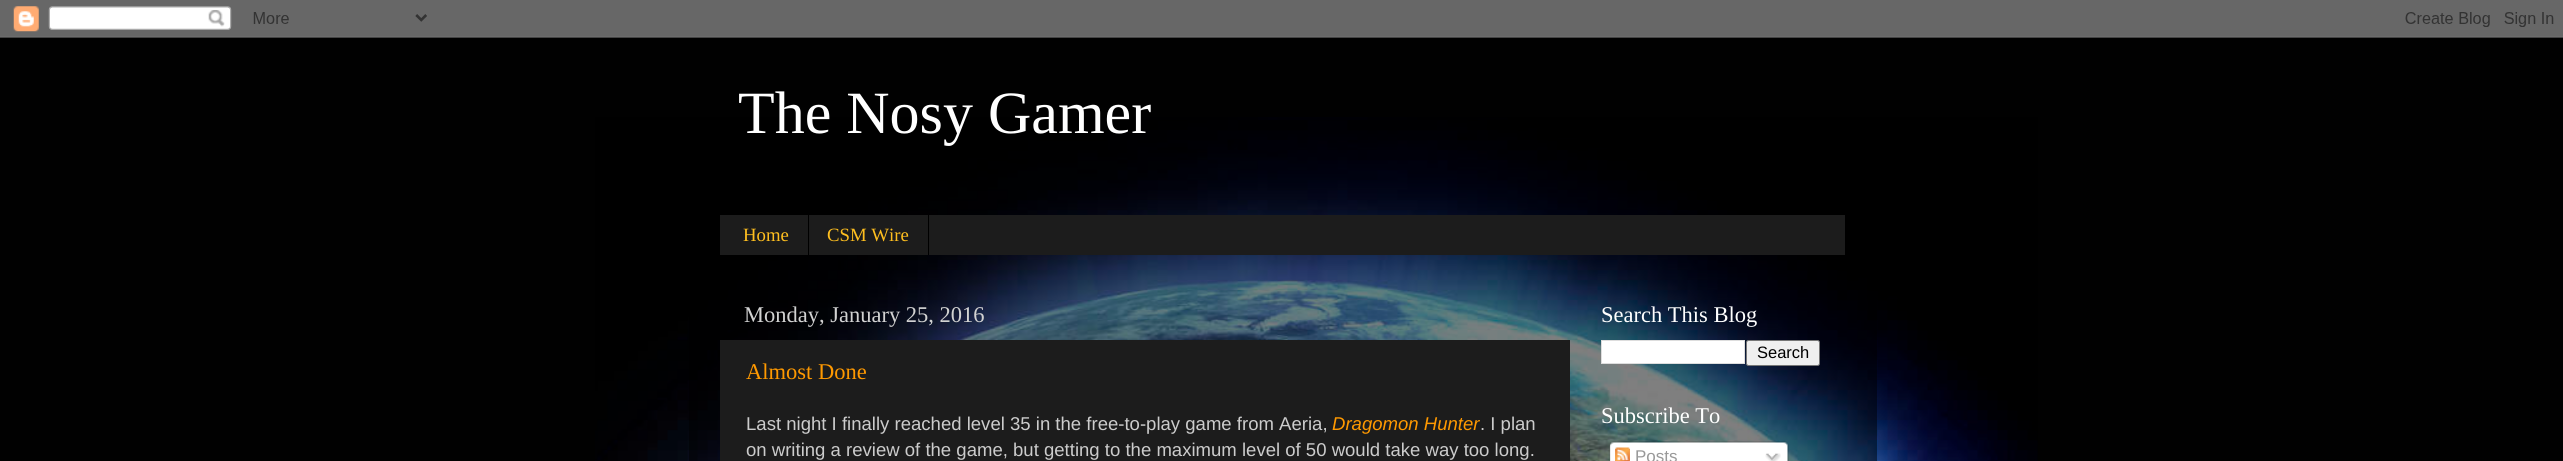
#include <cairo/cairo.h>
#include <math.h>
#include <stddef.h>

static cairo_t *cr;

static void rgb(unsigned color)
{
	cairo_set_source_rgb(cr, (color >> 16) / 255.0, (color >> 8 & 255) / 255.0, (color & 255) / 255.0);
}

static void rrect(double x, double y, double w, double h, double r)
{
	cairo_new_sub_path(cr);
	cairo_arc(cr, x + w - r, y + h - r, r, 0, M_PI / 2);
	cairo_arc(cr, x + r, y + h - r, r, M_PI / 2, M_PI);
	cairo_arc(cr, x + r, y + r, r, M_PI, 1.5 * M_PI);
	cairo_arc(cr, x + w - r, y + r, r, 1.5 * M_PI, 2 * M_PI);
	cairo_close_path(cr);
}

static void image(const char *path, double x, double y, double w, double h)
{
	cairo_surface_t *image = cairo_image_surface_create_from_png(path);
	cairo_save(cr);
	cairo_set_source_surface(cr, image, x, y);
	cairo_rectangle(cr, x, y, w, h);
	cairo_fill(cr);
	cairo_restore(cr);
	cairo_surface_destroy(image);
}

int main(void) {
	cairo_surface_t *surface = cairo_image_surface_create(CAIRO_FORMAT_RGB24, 2563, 461);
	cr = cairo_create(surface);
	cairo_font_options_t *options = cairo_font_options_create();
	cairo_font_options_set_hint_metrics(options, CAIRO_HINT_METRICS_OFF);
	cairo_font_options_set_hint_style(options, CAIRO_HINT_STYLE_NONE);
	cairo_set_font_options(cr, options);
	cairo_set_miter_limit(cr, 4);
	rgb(0x010101);
	cairo_paint(cr);
	image("img/1.png", 595, 117, 1443, 344);
	image("img/2.png", 0, 0, 2563, 38);
	cairo_set_source_rgba(cr, 0, 0, 0, 0.5);
	cairo_rectangle(cr, 689, 120, 1188, 341);
	cairo_fill(cr);
	rgb(0x1c1c1c);
	cairo_rectangle(cr, 720, 215, 1125, 40);
	cairo_fill(cr);
	rgb(0x000000);
	cairo_rectangle(cr, 808, 215, 1, 40);
	cairo_fill(cr);
	cairo_rectangle(cr, 928, 215, 1, 40);
	cairo_fill(cr);
	rgb(0x1c1c1c);
	cairo_rectangle(cr, 720, 340, 850, 121);
	cairo_fill(cr);
	rgb(0xffffff);
	cairo_rectangle(cr, 1601.5, 340.5, 143, 23);
	cairo_fill_preserve(cr);
	rgb(0xdddddd);
	cairo_set_line_width(cr, 1);
	cairo_stroke(cr);
	rgb(0xefefef);
	rrect(1746.5, 340.5, 73, 25, 2);
	cairo_fill_preserve(cr);
	rgb(0x767676);
	cairo_stroke(cr);
	image("img/3.png", 1608, 441, 181, 20);
	image("img/4.png", 1615, 447, 15, 14);
	image("img/5.png", 1765, 453, 16, 8);
	cairo_select_font_face(cr, "Liberation Serif", CAIRO_FONT_SLANT_NORMAL, CAIRO_FONT_WEIGHT_NORMAL);
	cairo_set_font_size(cr, 60);
	rgb(0xffffff);
	cairo_move_to(cr, 738, 133);
	cairo_show_text(cr, "The Nosy Gamer");
	cairo_set_font_size(cr, 18.75);
	rgb(0xffbf1f);
	cairo_move_to(cr, 743, 241);
	cairo_show_text(cr, "Home");
	cairo_move_to(cr, 827, 241);
	cairo_show_text(cr, "CSM Wire");
	cairo_set_font_size(cr, 22.5);
	rgb(0xd2d2d2);
	cairo_move_to(cr, 744, 322);
	cairo_show_text(cr, "Monday, January 25, 2016");
	rgb(0xff9900);
	cairo_move_to(cr, 746, 379);
	cairo_show_text(cr, "Almost Done");
	cairo_select_font_face(cr, "Liberation Sans", CAIRO_FONT_SLANT_NORMAL, CAIRO_FONT_WEIGHT_NORMAL);
	cairo_set_font_size(cr, 18.55);
	rgb(0xcccccc);
	cairo_move_to(cr, 746, 430);
	cairo_show_text(cr, "Last night I finally reached level 35 in the free-to-play game from Aeria,");
	cairo_select_font_face(cr, "Liberation Sans", CAIRO_FONT_SLANT_ITALIC, CAIRO_FONT_WEIGHT_NORMAL);
	rgb(0xff9900);
	cairo_move_to(cr, 1332, 430);
	cairo_show_text(cr, "Dragomon Hunter");
	cairo_select_font_face(cr, "Liberation Sans", CAIRO_FONT_SLANT_NORMAL, CAIRO_FONT_WEIGHT_NORMAL);
	rgb(0xcccccc);
	cairo_move_to(cr, 1480, 430);
	cairo_show_text(cr, ". I plan");
	cairo_move_to(cr, 746, 456);
	cairo_show_text(cr, "on writing a review of the game, but getting to the maximum level of 50 would take way too long.");
	cairo_select_font_face(cr, "Liberation Serif", CAIRO_FONT_SLANT_NORMAL, CAIRO_FONT_WEIGHT_NORMAL);
	cairo_set_font_size(cr, 22.5);
	rgb(0xffffff);
	cairo_move_to(cr, 1601, 322);
	cairo_show_text(cr, "Search This Blog");
	cairo_select_font_face(cr, "Liberation Sans", CAIRO_FONT_SLANT_NORMAL, CAIRO_FONT_WEIGHT_NORMAL);
	cairo_set_font_size(cr, 16.5);
	rgb(0x000000);
	cairo_move_to(cr, 1757, 358);
	cairo_show_text(cr, "Search");
	cairo_select_font_face(cr, "Liberation Serif", CAIRO_FONT_SLANT_NORMAL, CAIRO_FONT_WEIGHT_NORMAL);
	cairo_set_font_size(cr, 22.5);
	rgb(0xffffff);
	cairo_move_to(cr, 1601, 423);
	cairo_show_text(cr, "Subscribe To");
	cairo_select_font_face(cr, "Liberation Sans", CAIRO_FONT_SLANT_NORMAL, CAIRO_FONT_WEIGHT_NORMAL);
	cairo_set_font_size(cr, 17);
	rgb(0x999999);
	cairo_move_to(cr, 1635, 462);
	cairo_show_text(cr, "Posts");
	cairo_surface_write_to_png(surface, "page.png");
	cairo_font_options_destroy(options);
	cairo_destroy(cr);
	cairo_surface_destroy(surface);
	return 0;
}
